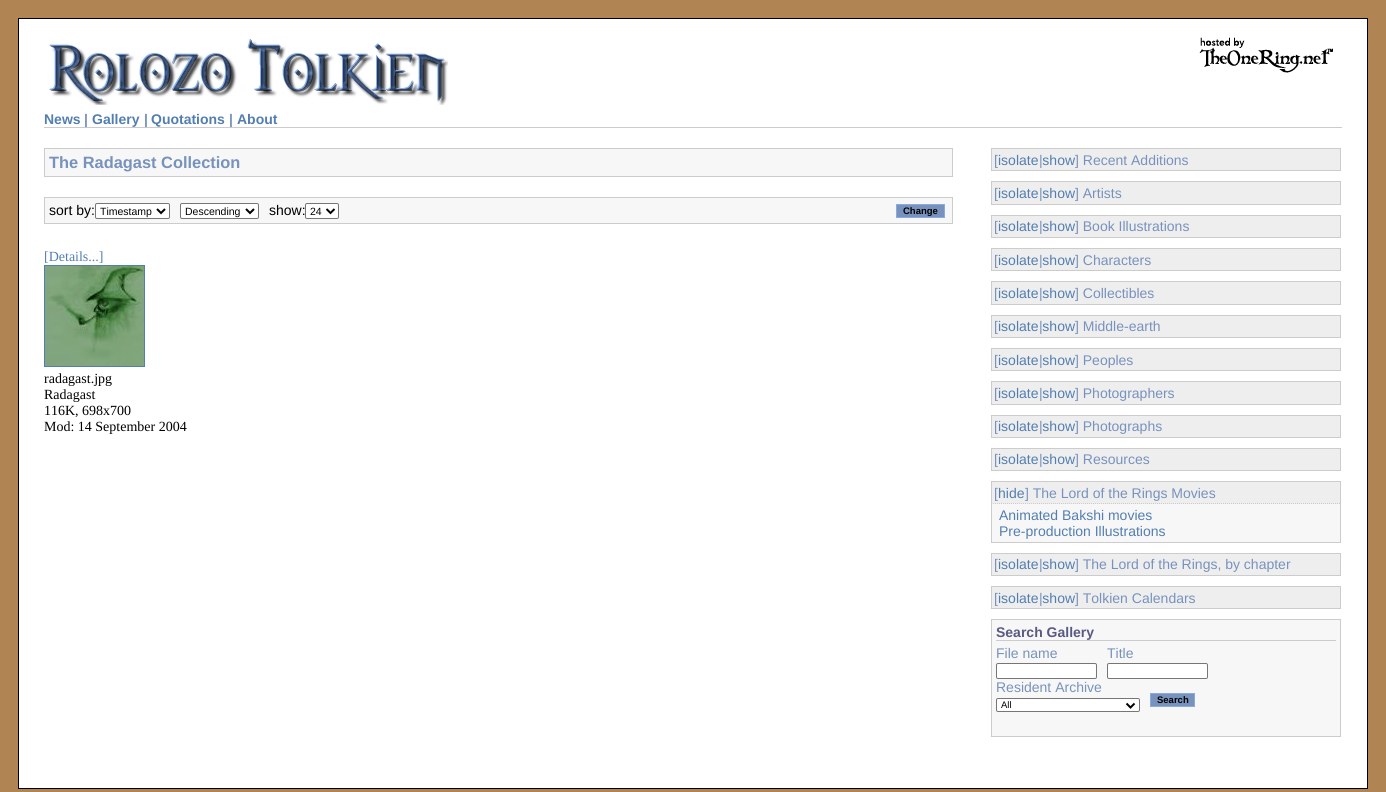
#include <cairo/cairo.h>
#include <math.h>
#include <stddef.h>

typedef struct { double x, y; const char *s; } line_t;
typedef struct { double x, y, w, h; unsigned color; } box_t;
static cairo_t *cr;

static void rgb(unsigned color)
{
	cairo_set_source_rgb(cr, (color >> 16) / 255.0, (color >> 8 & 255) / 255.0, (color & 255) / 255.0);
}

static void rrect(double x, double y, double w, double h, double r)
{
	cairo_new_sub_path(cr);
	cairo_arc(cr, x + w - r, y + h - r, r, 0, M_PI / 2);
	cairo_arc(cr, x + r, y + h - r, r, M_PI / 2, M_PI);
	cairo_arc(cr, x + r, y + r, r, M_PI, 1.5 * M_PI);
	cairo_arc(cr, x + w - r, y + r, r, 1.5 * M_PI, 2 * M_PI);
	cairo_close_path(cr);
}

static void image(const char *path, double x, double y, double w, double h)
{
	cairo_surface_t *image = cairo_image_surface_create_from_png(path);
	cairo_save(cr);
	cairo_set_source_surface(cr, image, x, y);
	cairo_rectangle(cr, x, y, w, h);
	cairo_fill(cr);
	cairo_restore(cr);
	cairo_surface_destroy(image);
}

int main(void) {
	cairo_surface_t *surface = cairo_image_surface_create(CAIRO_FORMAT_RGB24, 1386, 792);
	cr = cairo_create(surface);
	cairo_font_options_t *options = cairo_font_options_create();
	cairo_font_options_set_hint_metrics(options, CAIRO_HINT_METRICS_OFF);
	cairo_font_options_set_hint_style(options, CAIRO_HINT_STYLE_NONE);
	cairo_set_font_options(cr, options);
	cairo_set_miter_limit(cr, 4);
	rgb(0xb08553);
	cairo_paint(cr);
	rgb(0xffffff);
	cairo_rectangle(cr, 18.5, 18.5, 1349, 770);
	cairo_fill_preserve(cr);
	rgb(0x000000);
	cairo_set_line_width(cr, 1);
	cairo_stroke(cr);
	image("img/1.png", 49, 38, 399, 67);
	image("img/2.png", 1199, 37, 134, 36);
	rgb(0xcccccc);
	cairo_rectangle(cr, 44, 127, 1298, 1);
	cairo_fill(cr);
	rgb(0xf7f7f7);
	cairo_rectangle(cr, 44.5, 148.5, 908, 28);
	cairo_fill_preserve(cr);
	rgb(0xcccccc);
	cairo_stroke(cr);
	rgb(0xf7f7f7);
	cairo_rectangle(cr, 44.5, 197.5, 908, 26);
	cairo_fill_preserve(cr);
	rgb(0xcccccc);
	cairo_stroke(cr);
	rgb(0xffffff);
	rrect(95.5, 203.5, 74, 15, 1.5);
	cairo_fill_preserve(cr);
	rgb(0x767676);
	cairo_stroke(cr);
	cairo_new_path(cr);
	cairo_move_to(cr, 157, 209);
	cairo_line_to(cr, 161, 213);
	cairo_line_to(cr, 165, 209);
	rgb(0x000000);
	cairo_set_line_width(cr, 2);
	cairo_stroke(cr);
	rgb(0xffffff);
	rrect(180.5, 203.5, 78, 15, 1.5);
	cairo_fill_preserve(cr);
	rgb(0x767676);
	cairo_set_line_width(cr, 1);
	cairo_stroke(cr);
	cairo_new_path(cr);
	cairo_move_to(cr, 246, 209);
	cairo_line_to(cr, 250, 213);
	cairo_line_to(cr, 254, 209);
	rgb(0x000000);
	cairo_set_line_width(cr, 2);
	cairo_stroke(cr);
	rgb(0xffffff);
	rrect(305.5, 203.5, 33, 15, 1.5);
	cairo_fill_preserve(cr);
	rgb(0x767676);
	cairo_set_line_width(cr, 1);
	cairo_stroke(cr);
	cairo_new_path(cr);
	cairo_move_to(cr, 326.5, 209);
	cairo_line_to(cr, 330.5, 213);
	cairo_line_to(cr, 334.5, 209);
	rgb(0x000000);
	cairo_set_line_width(cr, 2);
	cairo_stroke(cr);
	rgb(0x7792bc);
	cairo_rectangle(cr, 896.5, 204.5, 48, 13);
	cairo_fill_preserve(cr);
	rgb(0x88aadd);
	cairo_set_line_width(cr, 1);
	cairo_stroke(cr);
	cairo_rectangle(cr, 44.5, 265.5, 100, 101);
	rgb(0x537eb0);
	cairo_stroke(cr);
	image("img/3.png", 45, 266, 99, 100);
	rgb(0xeeeeee);
	cairo_rectangle(cr, 991.5, 148.5, 349, 22);
	cairo_fill_preserve(cr);
	rgb(0xcccccc);
	cairo_stroke(cr);
	rgb(0xeeeeee);
	cairo_rectangle(cr, 991.5, 181.5, 349, 23);
	cairo_fill_preserve(cr);
	rgb(0xcccccc);
	cairo_stroke(cr);
	rgb(0xeeeeee);
	cairo_rectangle(cr, 991.5, 215.5, 349, 22);
	cairo_fill_preserve(cr);
	rgb(0xcccccc);
	cairo_stroke(cr);
	rgb(0xeeeeee);
	cairo_rectangle(cr, 991.5, 248.5, 349, 22);
	cairo_fill_preserve(cr);
	rgb(0xcccccc);
	cairo_stroke(cr);
	rgb(0xeeeeee);
	cairo_rectangle(cr, 991.5, 281.5, 349, 23);
	cairo_fill_preserve(cr);
	rgb(0xcccccc);
	cairo_stroke(cr);
	rgb(0xeeeeee);
	cairo_rectangle(cr, 991.5, 315.5, 349, 22);
	cairo_fill_preserve(cr);
	rgb(0xcccccc);
	cairo_stroke(cr);
	rgb(0xeeeeee);
	cairo_rectangle(cr, 991.5, 348.5, 349, 22);
	cairo_fill_preserve(cr);
	rgb(0xcccccc);
	cairo_stroke(cr);
	rgb(0xeeeeee);
	cairo_rectangle(cr, 991.5, 381.5, 349, 23);
	cairo_fill_preserve(cr);
	rgb(0xcccccc);
	cairo_stroke(cr);
	rgb(0xeeeeee);
	cairo_rectangle(cr, 991.5, 415.5, 349, 22);
	cairo_fill_preserve(cr);
	rgb(0xcccccc);
	cairo_stroke(cr);
	rgb(0xeeeeee);
	cairo_rectangle(cr, 991.5, 448.5, 349, 22);
	cairo_fill_preserve(cr);
	rgb(0xcccccc);
	cairo_stroke(cr);
	{
		static const box_t items[] = {
			{992, 482, 348, 22, 0xeeeeee},
			{991, 481, 350, 1, 0xcccccc},
			{1340, 481, 1, 62, 0xcccccc},
		};
		for (size_t i = 0; i < sizeof items / sizeof *items; i++) {
			rgb(items[i].color);
			cairo_rectangle(cr, items[i].x, items[i].y, items[i].w, items[i].h);
			cairo_fill(cr);
		}
	}
	cairo_new_path(cr);
	cairo_move_to(cr, 991, 503.5);
	cairo_line_to(cr, 1341, 503.5);
	cairo_set_dash(cr, (double[]){1, 1}, 2, 0);
	cairo_stroke(cr);
	{
		static const box_t items[] = {
			{991, 481, 1, 23, 0xcccccc},
			{992, 504, 348, 38, 0xf7f7f7},
			{991, 542, 350, 1, 0xcccccc},
			{991, 504, 1, 39, 0xcccccc},
		};
		for (size_t i = 0; i < sizeof items / sizeof *items; i++) {
			rgb(items[i].color);
			cairo_rectangle(cr, items[i].x, items[i].y, items[i].w, items[i].h);
			cairo_fill(cr);
		}
	}
	rgb(0xeeeeee);
	cairo_rectangle(cr, 991.5, 553.5, 349, 22);
	cairo_fill_preserve(cr);
	rgb(0xcccccc);
	cairo_set_dash(cr, NULL, 0, 0);
	cairo_stroke(cr);
	rgb(0xeeeeee);
	cairo_rectangle(cr, 991.5, 586.5, 349, 22);
	cairo_fill_preserve(cr);
	rgb(0xcccccc);
	cairo_stroke(cr);
	rgb(0xf7f7f7);
	cairo_rectangle(cr, 991.5, 619.5, 349, 117);
	cairo_fill_preserve(cr);
	rgb(0xcccccc);
	cairo_stroke(cr);
	cairo_rectangle(cr, 996, 640, 340, 1);
	cairo_fill(cr);
	rgb(0xffffff);
	rrect(996.5, 663.5, 100, 15, 1.5);
	cairo_fill_preserve(cr);
	rgb(0x767676);
	cairo_stroke(cr);
	rgb(0xffffff);
	rrect(1107.5, 663.5, 100, 15, 1.5);
	cairo_fill_preserve(cr);
	rgb(0x767676);
	cairo_stroke(cr);
	rgb(0xffffff);
	rrect(996.5, 698.5, 143, 13, 1.5);
	cairo_fill_preserve(cr);
	rgb(0x767676);
	cairo_stroke(cr);
	cairo_new_path(cr);
	cairo_move_to(cr, 1126.5, 703.5);
	cairo_line_to(cr, 1130.5, 707.5);
	cairo_line_to(cr, 1134.5, 703.5);
	rgb(0x000000);
	cairo_set_line_width(cr, 2);
	cairo_stroke(cr);
	rgb(0x7792bc);
	cairo_rectangle(cr, 1150.5, 693.5, 44, 13);
	cairo_fill_preserve(cr);
	rgb(0x88aadd);
	cairo_set_line_width(cr, 1);
	cairo_stroke(cr);
	cairo_select_font_face(cr, "Liberation Sans", CAIRO_FONT_SLANT_NORMAL, CAIRO_FONT_WEIGHT_BOLD);
	cairo_set_font_size(cr, 14);
	rgb(0x537eb0);
	cairo_move_to(cr, 44, 124);
	cairo_show_text(cr, "News");
	rgb(0x7792bc);
	cairo_move_to(cr, 84, 124);
	cairo_show_text(cr, "|");
	rgb(0x537eb0);
	cairo_move_to(cr, 92, 124);
	cairo_show_text(cr, "Gallery");
	rgb(0x7792bc);
	cairo_move_to(cr, 144, 124);
	cairo_show_text(cr, "|");
	rgb(0x537eb0);
	cairo_move_to(cr, 151, 124);
	cairo_show_text(cr, "Quotations");
	rgb(0x7792bc);
	cairo_move_to(cr, 229, 124);
	cairo_show_text(cr, "|");
	rgb(0x537eb0);
	cairo_move_to(cr, 237, 124);
	cairo_show_text(cr, "About");
	cairo_set_font_size(cr, 16.4);
	rgb(0x7792bc);
	cairo_move_to(cr, 49, 168);
	cairo_show_text(cr, "The Radagast Collection");
	cairo_select_font_face(cr, "Liberation Sans", CAIRO_FONT_SLANT_NORMAL, CAIRO_FONT_WEIGHT_NORMAL);
	cairo_set_font_size(cr, 14);
	rgb(0x000000);
	cairo_move_to(cr, 49, 215);
	cairo_show_text(cr, "sort by:");
	cairo_set_font_size(cr, 10.5);
	cairo_move_to(cr, 100, 215);
	cairo_show_text(cr, "Timestamp");
	cairo_move_to(cr, 185, 215);
	cairo_show_text(cr, "Descending");
	cairo_set_font_size(cr, 14);
	cairo_move_to(cr, 269, 215);
	cairo_show_text(cr, "show:");
	cairo_set_font_size(cr, 10.5);
	cairo_move_to(cr, 310, 215);
	cairo_show_text(cr, "24");
	cairo_select_font_face(cr, "Liberation Sans", CAIRO_FONT_SLANT_NORMAL, CAIRO_FONT_WEIGHT_BOLD);
	cairo_set_font_size(cr, 9.5);
	cairo_move_to(cr, 903, 214);
	cairo_show_text(cr, "Change");
	cairo_select_font_face(cr, "Liberation Serif", CAIRO_FONT_SLANT_NORMAL, CAIRO_FONT_WEIGHT_NORMAL);
	cairo_set_font_size(cr, 14);
	rgb(0x537eb0);
	cairo_move_to(cr, 44, 261);
	cairo_show_text(cr, "[Details...]");
	rgb(0x000000);
	{
		static const line_t items[] = {
			{44, 383, "radagast.jpg"},
			{44, 399, "Radagast"},
			{44, 415, "116K, 698x700"},
			{44, 431, "Mod: 14 September 2004"},
		};
		for (size_t i = 0; i < sizeof items / sizeof *items; i++) {
			cairo_move_to(cr, items[i].x, items[i].y);
			cairo_show_text(cr, items[i].s);
		}
	}
	cairo_select_font_face(cr, "Liberation Sans", CAIRO_FONT_SLANT_NORMAL, CAIRO_FONT_WEIGHT_NORMAL);
	rgb(0x7792bc);
	cairo_move_to(cr, 994, 165);
	cairo_show_text(cr, "[");
	rgb(0x537eb0);
	cairo_move_to(cr, 998, 165);
	cairo_show_text(cr, "isolate show");
	rgb(0x7792bc);
	{
		static const line_t items[] = {
			{1039, 165, "|"},
			{1075, 165, "] Recent Additions"},
			{994, 198, "["},
		};
		for (size_t i = 0; i < sizeof items / sizeof *items; i++) {
			cairo_move_to(cr, items[i].x, items[i].y);
			cairo_show_text(cr, items[i].s);
		}
	}
	rgb(0x537eb0);
	cairo_move_to(cr, 998, 198);
	cairo_show_text(cr, "isolate show");
	rgb(0x7792bc);
	{
		static const line_t items[] = {
			{1039, 198, "|"},
			{1075, 198, "] Artists"},
			{994, 231, "["},
		};
		for (size_t i = 0; i < sizeof items / sizeof *items; i++) {
			cairo_move_to(cr, items[i].x, items[i].y);
			cairo_show_text(cr, items[i].s);
		}
	}
	rgb(0x537eb0);
	cairo_move_to(cr, 998, 231);
	cairo_show_text(cr, "isolate show");
	rgb(0x7792bc);
	{
		static const line_t items[] = {
			{1039, 231, "|"},
			{1075, 231, "] Book Illustrations"},
			{994, 265, "["},
		};
		for (size_t i = 0; i < sizeof items / sizeof *items; i++) {
			cairo_move_to(cr, items[i].x, items[i].y);
			cairo_show_text(cr, items[i].s);
		}
	}
	rgb(0x537eb0);
	cairo_move_to(cr, 998, 265);
	cairo_show_text(cr, "isolate show");
	rgb(0x7792bc);
	{
		static const line_t items[] = {
			{1039, 265, "|"},
			{1075, 265, "] Characters"},
			{994, 298, "["},
		};
		for (size_t i = 0; i < sizeof items / sizeof *items; i++) {
			cairo_move_to(cr, items[i].x, items[i].y);
			cairo_show_text(cr, items[i].s);
		}
	}
	rgb(0x537eb0);
	cairo_move_to(cr, 998, 298);
	cairo_show_text(cr, "isolate show");
	rgb(0x7792bc);
	{
		static const line_t items[] = {
			{1039, 298, "|"},
			{1075, 298, "] Collectibles"},
			{994, 331, "["},
		};
		for (size_t i = 0; i < sizeof items / sizeof *items; i++) {
			cairo_move_to(cr, items[i].x, items[i].y);
			cairo_show_text(cr, items[i].s);
		}
	}
	rgb(0x537eb0);
	cairo_move_to(cr, 998, 331);
	cairo_show_text(cr, "isolate show");
	rgb(0x7792bc);
	{
		static const line_t items[] = {
			{1039, 331, "|"},
			{1075, 331, "] Middle-earth"},
			{994, 365, "["},
		};
		for (size_t i = 0; i < sizeof items / sizeof *items; i++) {
			cairo_move_to(cr, items[i].x, items[i].y);
			cairo_show_text(cr, items[i].s);
		}
	}
	rgb(0x537eb0);
	cairo_move_to(cr, 998, 365);
	cairo_show_text(cr, "isolate show");
	rgb(0x7792bc);
	{
		static const line_t items[] = {
			{1039, 365, "|"},
			{1075, 365, "] Peoples"},
			{994, 398, "["},
		};
		for (size_t i = 0; i < sizeof items / sizeof *items; i++) {
			cairo_move_to(cr, items[i].x, items[i].y);
			cairo_show_text(cr, items[i].s);
		}
	}
	rgb(0x537eb0);
	cairo_move_to(cr, 998, 398);
	cairo_show_text(cr, "isolate show");
	rgb(0x7792bc);
	{
		static const line_t items[] = {
			{1039, 398, "|"},
			{1075, 398, "] Photographers"},
			{994, 431, "["},
		};
		for (size_t i = 0; i < sizeof items / sizeof *items; i++) {
			cairo_move_to(cr, items[i].x, items[i].y);
			cairo_show_text(cr, items[i].s);
		}
	}
	rgb(0x537eb0);
	cairo_move_to(cr, 998, 431);
	cairo_show_text(cr, "isolate show");
	rgb(0x7792bc);
	{
		static const line_t items[] = {
			{1039, 431, "|"},
			{1075, 431, "] Photographs"},
			{994, 464, "["},
		};
		for (size_t i = 0; i < sizeof items / sizeof *items; i++) {
			cairo_move_to(cr, items[i].x, items[i].y);
			cairo_show_text(cr, items[i].s);
		}
	}
	rgb(0x537eb0);
	cairo_move_to(cr, 998, 464);
	cairo_show_text(cr, "isolate show");
	rgb(0x7792bc);
	{
		static const line_t items[] = {
			{1039, 464, "|"},
			{1075, 464, "] Resources"},
			{994, 498, "["},
		};
		for (size_t i = 0; i < sizeof items / sizeof *items; i++) {
			cairo_move_to(cr, items[i].x, items[i].y);
			cairo_show_text(cr, items[i].s);
		}
	}
	rgb(0x537eb0);
	cairo_move_to(cr, 998, 498);
	cairo_show_text(cr, "hide");
	rgb(0x7792bc);
	cairo_move_to(cr, 1025, 498);
	cairo_show_text(cr, "] The Lord of the Rings Movies");
	rgb(0x537eb0);
	cairo_move_to(cr, 999, 520);
	cairo_show_text(cr, "Animated Bakshi movies");
	cairo_move_to(cr, 999, 536);
	cairo_show_text(cr, "Pre-production Illustrations");
	rgb(0x7792bc);
	cairo_move_to(cr, 994, 569);
	cairo_show_text(cr, "[");
	rgb(0x537eb0);
	cairo_move_to(cr, 998, 569);
	cairo_show_text(cr, "isolate show");
	rgb(0x7792bc);
	{
		static const line_t items[] = {
			{1039, 569, "|"},
			{1075, 569, "] The Lord of the Rings, by chapter"},
			{994, 603, "["},
		};
		for (size_t i = 0; i < sizeof items / sizeof *items; i++) {
			cairo_move_to(cr, items[i].x, items[i].y);
			cairo_show_text(cr, items[i].s);
		}
	}
	rgb(0x537eb0);
	cairo_move_to(cr, 998, 603);
	cairo_show_text(cr, "isolate show");
	rgb(0x7792bc);
	cairo_move_to(cr, 1039, 603);
	cairo_show_text(cr, "|");
	cairo_move_to(cr, 1075, 603);
	cairo_show_text(cr, "] Tolkien Calendars");
	cairo_select_font_face(cr, "Liberation Sans", CAIRO_FONT_SLANT_NORMAL, CAIRO_FONT_WEIGHT_BOLD);
	rgb(0x595983);
	cairo_move_to(cr, 996, 637);
	cairo_show_text(cr, "Search Gallery");
	cairo_select_font_face(cr, "Liberation Sans", CAIRO_FONT_SLANT_NORMAL, CAIRO_FONT_WEIGHT_NORMAL);
	rgb(0x7792bc);
	{
		static const line_t items[] = {
			{996, 658, "File name"},
			{1107, 658, "Title"},
			{996, 692, "Resident Archive"},
		};
		for (size_t i = 0; i < sizeof items / sizeof *items; i++) {
			cairo_move_to(cr, items[i].x, items[i].y);
			cairo_show_text(cr, items[i].s);
		}
	}
	cairo_set_font_size(cr, 9.5);
	rgb(0x000000);
	cairo_move_to(cr, 1001, 708);
	cairo_show_text(cr, "All");
	cairo_select_font_face(cr, "Liberation Sans", CAIRO_FONT_SLANT_NORMAL, CAIRO_FONT_WEIGHT_BOLD);
	cairo_move_to(cr, 1157, 703);
	cairo_show_text(cr, "Search");
	cairo_surface_write_to_png(surface, "page.png");
	cairo_font_options_destroy(options);
	cairo_destroy(cr);
	cairo_surface_destroy(surface);
	return 0;
}
